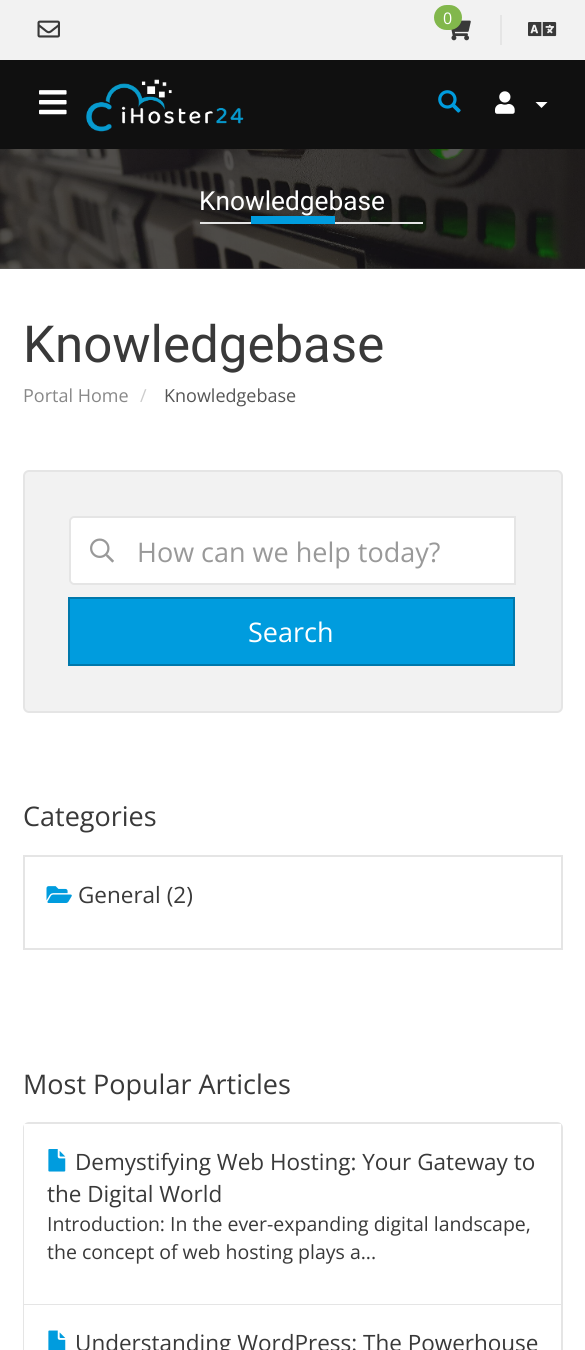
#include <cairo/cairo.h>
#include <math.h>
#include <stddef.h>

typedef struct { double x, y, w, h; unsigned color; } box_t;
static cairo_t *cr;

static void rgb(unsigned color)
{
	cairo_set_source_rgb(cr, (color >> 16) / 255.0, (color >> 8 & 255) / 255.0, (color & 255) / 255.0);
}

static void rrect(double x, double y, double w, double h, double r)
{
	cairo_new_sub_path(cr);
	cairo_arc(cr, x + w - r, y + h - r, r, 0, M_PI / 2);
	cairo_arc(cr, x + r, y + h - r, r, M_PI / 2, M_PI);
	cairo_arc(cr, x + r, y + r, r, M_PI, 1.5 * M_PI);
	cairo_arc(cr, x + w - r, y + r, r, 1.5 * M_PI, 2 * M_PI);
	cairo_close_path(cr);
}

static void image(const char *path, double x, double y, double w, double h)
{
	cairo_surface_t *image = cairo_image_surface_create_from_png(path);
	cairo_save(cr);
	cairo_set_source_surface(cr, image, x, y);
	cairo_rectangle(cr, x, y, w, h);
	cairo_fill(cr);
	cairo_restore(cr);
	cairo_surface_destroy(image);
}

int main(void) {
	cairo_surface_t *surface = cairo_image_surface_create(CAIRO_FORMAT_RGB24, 585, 1350);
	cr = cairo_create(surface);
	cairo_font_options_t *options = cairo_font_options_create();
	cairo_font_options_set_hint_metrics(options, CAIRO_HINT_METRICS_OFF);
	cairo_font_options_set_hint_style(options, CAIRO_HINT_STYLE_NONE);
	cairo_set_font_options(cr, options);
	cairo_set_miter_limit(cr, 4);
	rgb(0xffffff);
	cairo_paint(cr);
	{
		static const box_t items[] = {
			{0, 268, 585, 1, 0x5a5a5a},
			{0, 60, 585, 89, 0x101010},
			{0, 0, 585, 60, 0xf2f2f2},
			{500, 15, 2, 30, 0xe5e5e5},
		};
		for (size_t i = 0; i < sizeof items / sizeof *items; i++) {
			rgb(items[i].color);
			cairo_rectangle(cr, items[i].x, items[i].y, items[i].w, items[i].h);
			cairo_fill(cr);
		}
	}
	image("img/1.png", 451, 20, 20, 21);
	rgb(0x82b74c);
	rrect(434, 5, 28, 25, 12.5);
	cairo_fill(cr);
	image("img/2.png", 528, 22, 29, 15);
	image("img/3.png", 37, 20, 23, 18);
	image("img/4.png", 39, 90, 28, 25);
	image("img/5.png", 86, 79, 158, 53);
	image("img/6.png", 438, 90, 23, 23);
	image("img/7.png", 495, 91, 20, 23);
	rgb(0xffffff);
	cairo_new_path(cr);
	cairo_move_to(cr, 535.5, 102);
	cairo_line_to(cr, 547.5, 102);
	cairo_line_to(cr, 541.5, 108);
	cairo_close_path(cr);
	cairo_fill(cr);
	image("img/8.png", 0, 149, 585, 120);
	rgb(0xe5e5e5);
	cairo_rectangle(cr, 200, 222, 223, 2);
	cairo_fill(cr);
	rgb(0x009cde);
	cairo_rectangle(cr, 251, 216, 84, 8);
	cairo_fill(cr);
	rgb(0xf2f2f2);
	rrect(24, 471, 538, 241, 5);
	cairo_fill_preserve(cr);
	rgb(0xe5e5e5);
	cairo_stroke(cr);
	rgb(0xffffff);
	cairo_new_path(cr);
	cairo_move_to(cr, 74, 517);
	cairo_line_to(cr, 515, 517);
	cairo_line_to(cr, 515, 584);
	cairo_line_to(cr, 74, 584);
	cairo_curve_to(cr, 72, 584, 70, 582, 70, 580);
	cairo_line_to(cr, 70, 521);
	cairo_curve_to(cr, 70, 519, 72, 517, 74, 517);
	cairo_close_path(cr);
	cairo_fill_preserve(cr);
	rgb(0xe5e5e5);
	cairo_stroke(cr);
	image("img/9.png", 90, 538, 24, 25);
	rgb(0x009cde);
	cairo_rectangle(cr, 69, 598, 445, 67);
	cairo_fill_preserve(cr);
	rgb(0x0078ab);
	cairo_stroke(cr);
	cairo_rectangle(cr, 24, 856, 538, 93);
	rgb(0xe5e5e5);
	cairo_stroke(cr);
	image("img/10.png", 46, 886, 26, 17);
	rrect(24, 1123, 538, 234, 5);
	cairo_stroke(cr);
	rgb(0xffffff);
	cairo_rectangle(cr, 24, 1124, 537, 180);
	cairo_fill(cr);
	rgb(0xe5e5e5);
	cairo_rectangle(cr, 24, 1304, 537, 1);
	cairo_fill(cr);
	image("img/11.png", 48, 1149, 18, 23);
	rgb(0xffffff);
	cairo_rectangle(cr, 24, 1305, 1, 45);
	cairo_fill(cr);
	image("img/12.png", 48, 1330, 18, 20);
	cairo_select_font_face(cr, "Open Sans", CAIRO_FONT_SLANT_NORMAL, CAIRO_FONT_WEIGHT_NORMAL);
	cairo_set_font_size(cr, 16);
	cairo_move_to(cr, 443, 24);
	cairo_show_text(cr, "0");
	cairo_select_font_face(cr, "Roboto", CAIRO_FONT_SLANT_NORMAL, CAIRO_FONT_WEIGHT_NORMAL);
	cairo_set_font_size(cr, 26.25);
	cairo_move_to(cr, 199, 210);
	cairo_show_text(cr, "Knowledgebase");
	cairo_set_font_size(cr, 51);
	rgb(0x393939);
	cairo_move_to(cr, 23, 362);
	cairo_show_text(cr, "Knowledgebase");
	cairo_select_font_face(cr, "Open Sans", CAIRO_FONT_SLANT_NORMAL, CAIRO_FONT_WEIGHT_NORMAL);
	cairo_set_font_size(cr, 18);
	rgb(0x888888);
	cairo_move_to(cr, 23, 402);
	cairo_show_text(cr, "Portal Home");
	rgb(0xcccccc);
	cairo_move_to(cr, 140, 402);
	cairo_show_text(cr, "/");
	rgb(0x555555);
	cairo_move_to(cr, 164, 402);
	cairo_show_text(cr, "Knowledgebase");
	cairo_set_font_size(cr, 27);
	rgb(0x999999);
	cairo_move_to(cr, 137, 562);
	cairo_show_text(cr, "How can we help today?");
	rgb(0xffffff);
	cairo_move_to(cr, 248, 642);
	cairo_show_text(cr, "Search");
	rgb(0x393939);
	cairo_move_to(cr, 23, 826);
	cairo_show_text(cr, "Categories");
	cairo_set_font_size(cr, 22.5);
	cairo_move_to(cr, 78, 903);
	cairo_show_text(cr, "General (2)");
	cairo_set_font_size(cr, 27);
	cairo_move_to(cr, 23, 1094);
	cairo_show_text(cr, "Most Popular Articles");
	cairo_set_font_size(cr, 22.5);
	cairo_move_to(cr, 75, 1170);
	cairo_show_text(cr, "Demystifying Web Hosting: Your Gateway to");
	cairo_move_to(cr, 47, 1202);
	cairo_show_text(cr, "the Digital World");
	cairo_set_font_size(cr, 19.5);
	cairo_move_to(cr, 47, 1231);
	cairo_show_text(cr, "Introduction: In the ever-expanding digital landscape,");
	cairo_move_to(cr, 47, 1259);
	cairo_show_text(cr, "the concept of web hosting plays a...");
	cairo_set_font_size(cr, 22.5);
	cairo_move_to(cr, 75, 1351);
	cairo_show_text(cr, "Understanding WordPress: The Powerhouse");
	cairo_surface_write_to_png(surface, "page.png");
	cairo_font_options_destroy(options);
	cairo_destroy(cr);
	cairo_surface_destroy(surface);
	return 0;
}
